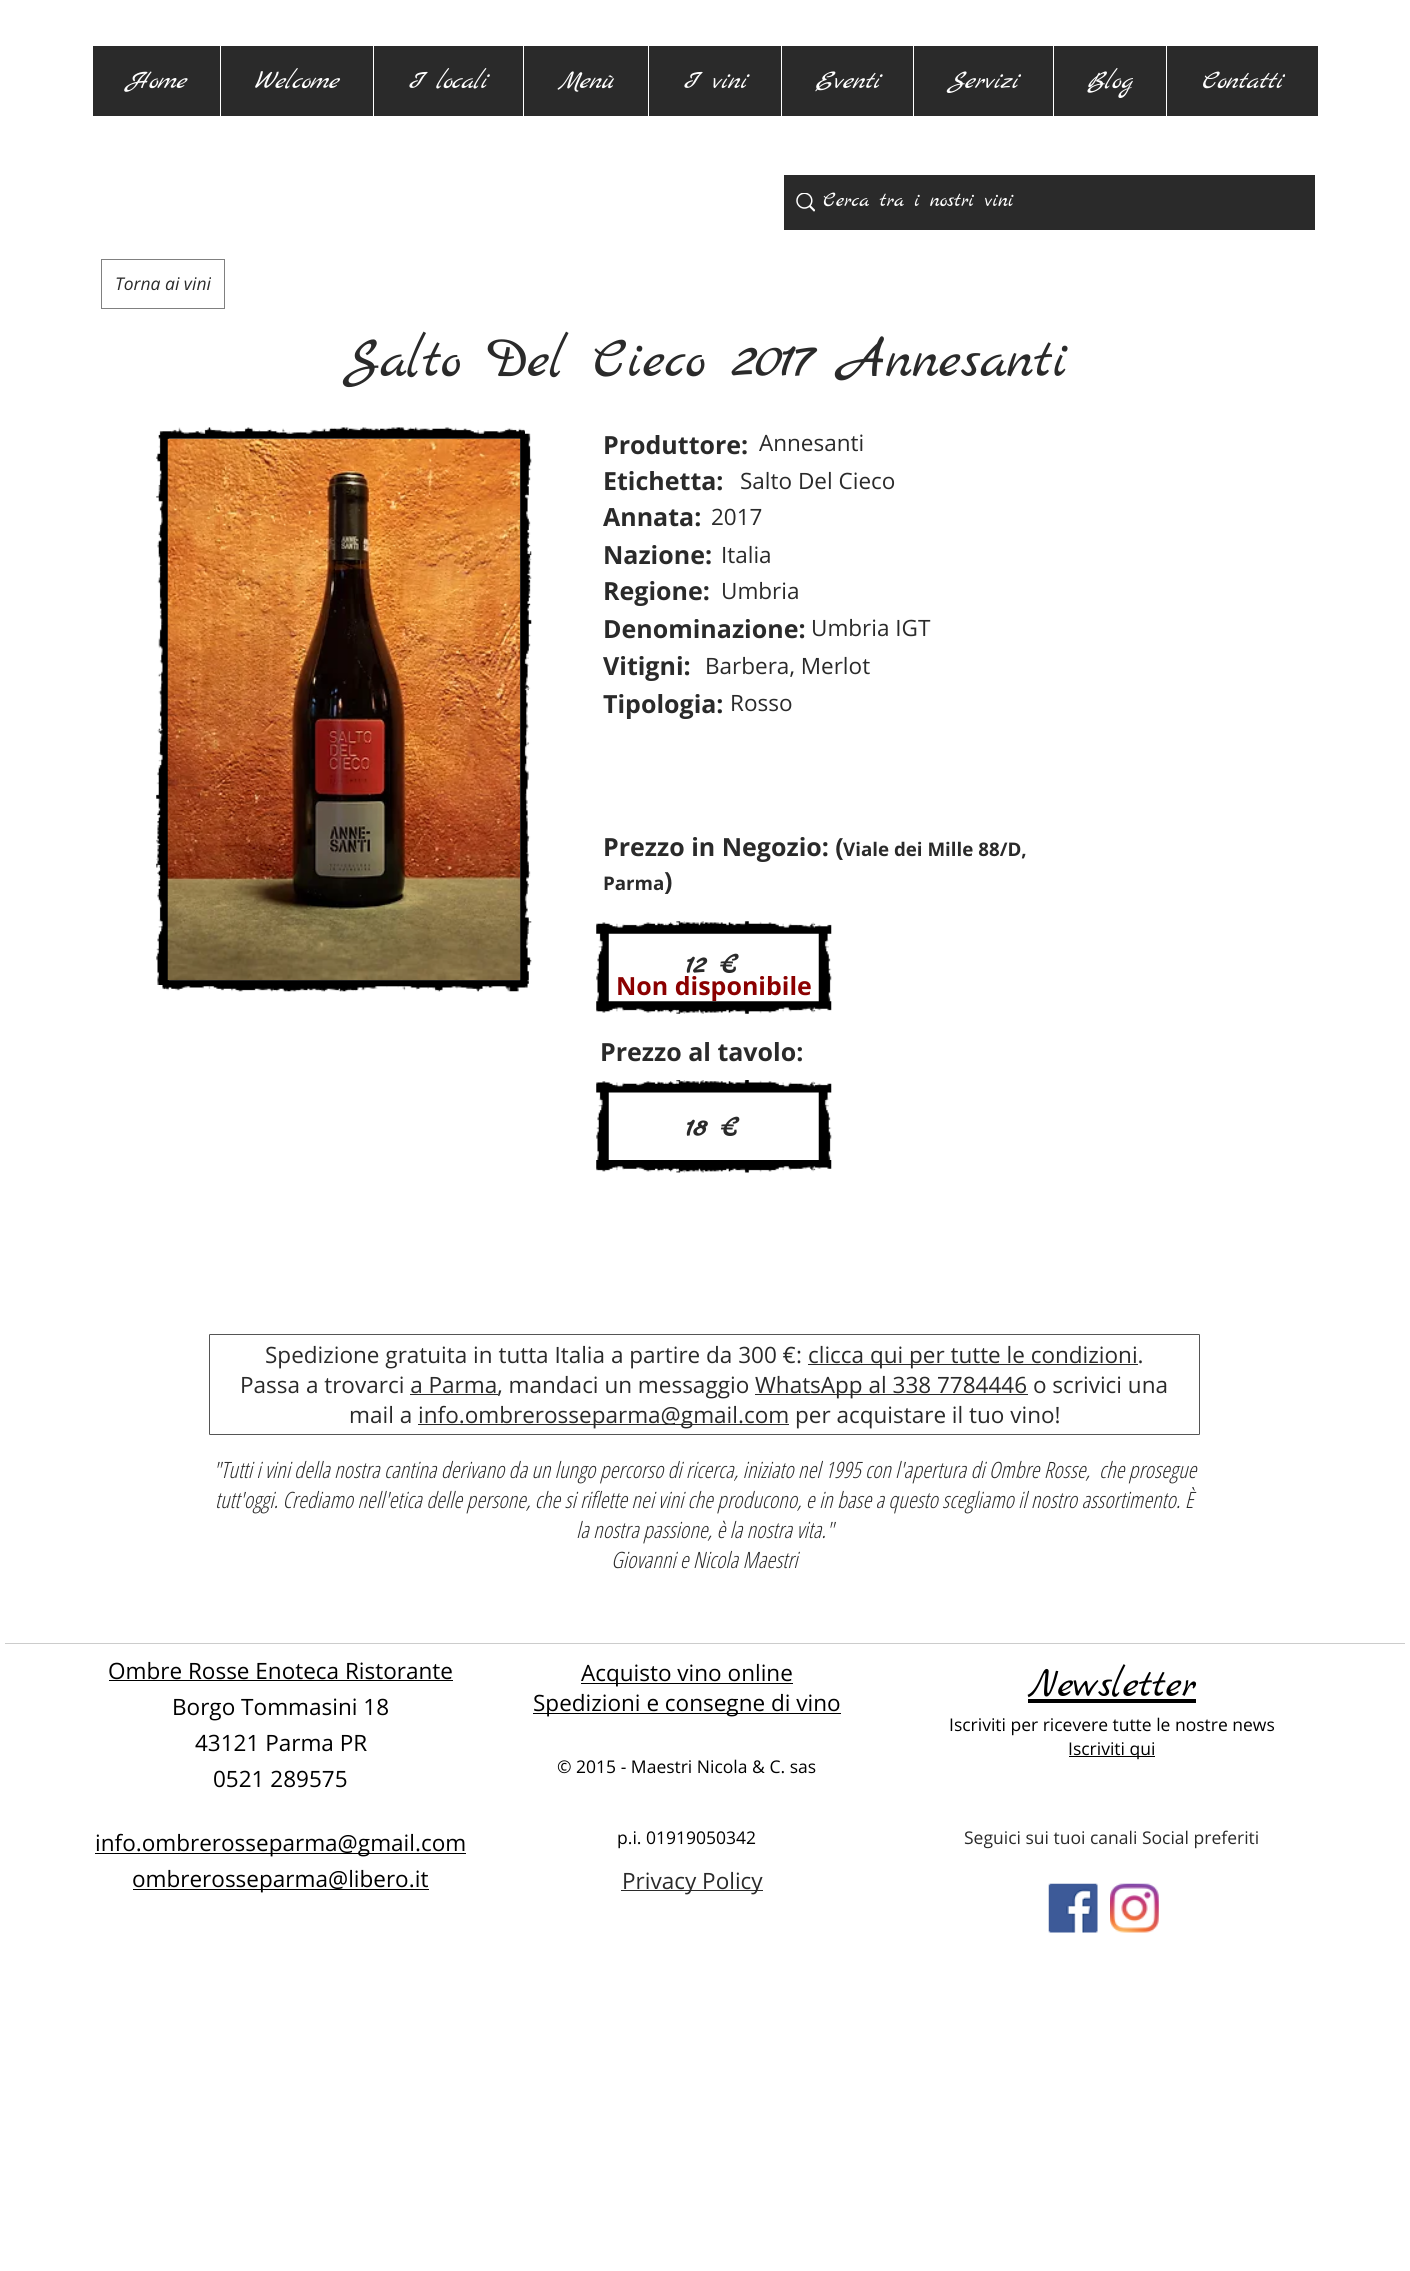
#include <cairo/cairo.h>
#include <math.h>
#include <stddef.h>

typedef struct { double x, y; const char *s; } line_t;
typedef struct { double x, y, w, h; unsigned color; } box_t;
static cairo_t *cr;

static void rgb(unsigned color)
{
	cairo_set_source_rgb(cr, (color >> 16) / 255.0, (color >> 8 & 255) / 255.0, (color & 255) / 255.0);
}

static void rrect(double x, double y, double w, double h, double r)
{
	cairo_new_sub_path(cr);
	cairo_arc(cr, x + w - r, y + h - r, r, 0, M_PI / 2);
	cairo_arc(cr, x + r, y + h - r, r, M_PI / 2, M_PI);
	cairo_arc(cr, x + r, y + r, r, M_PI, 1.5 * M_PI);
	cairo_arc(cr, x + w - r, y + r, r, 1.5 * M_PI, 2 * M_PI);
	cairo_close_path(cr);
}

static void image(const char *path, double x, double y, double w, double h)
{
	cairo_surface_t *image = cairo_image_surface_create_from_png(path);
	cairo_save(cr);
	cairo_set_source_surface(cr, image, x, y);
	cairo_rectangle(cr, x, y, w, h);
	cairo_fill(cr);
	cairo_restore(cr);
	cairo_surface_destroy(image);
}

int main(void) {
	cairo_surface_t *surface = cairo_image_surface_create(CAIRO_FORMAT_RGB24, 1410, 2271);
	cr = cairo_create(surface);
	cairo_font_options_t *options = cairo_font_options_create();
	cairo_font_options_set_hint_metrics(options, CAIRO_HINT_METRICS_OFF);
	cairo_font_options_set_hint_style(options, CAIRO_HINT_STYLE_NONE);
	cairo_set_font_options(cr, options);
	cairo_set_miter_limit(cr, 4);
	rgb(0xffffff);
	cairo_paint(cr);
	{
		static const box_t items[] = {
			{93, 46, 1225, 70, 0x2a2a2a},
			{220, 46, 1, 70, 0xffffff},
			{373, 46, 1, 70, 0xffffff},
			{523, 46, 1, 70, 0xffffff},
			{648, 46, 1, 70, 0xffffff},
			{781, 46, 1, 70, 0xffffff},
			{913, 46, 1, 70, 0xffffff},
			{1053, 46, 1, 70, 0xffffff},
			{1166, 46, 1, 70, 0xffffff},
			{784, 175, 531, 55, 0x2a2a2a},
		};
		for (size_t i = 0; i < sizeof items / sizeof *items; i++) {
			rgb(items[i].color);
			cairo_rectangle(cr, items[i].x, items[i].y, items[i].w, items[i].h);
			cairo_fill(cr);
		}
	}
	image("img/1.png", 796, 193, 19, 19);
	cairo_rectangle(cr, 101.5, 259.5, 123, 49);
	rgb(0x808080);
	cairo_set_line_width(cr, 1);
	cairo_stroke(cr);
	image("img/4.png", 162, 433, 370, 559);
	image("img/2.png", 156, 427, 369, 558);
	image("img/3.png", 167, 438, 353, 542);
	image("img/5.png", 596, 921, 236, 13);
	image("img/6.png", 596, 1001, 236, 13);
	image("img/7.png", 596, 933, 13, 69);
	image("img/8.png", 818, 933, 14, 69);
	image("img/9.png", 596, 1080, 236, 13);
	image("img/10.png", 596, 1160, 236, 13);
	image("img/11.png", 596, 1092, 13, 68);
	image("img/12.png", 818, 1092, 14, 68);
	rrect(209.5, 1334.5, 990, 100, 0.5);
	rgb(0x555555);
	cairo_stroke(cr);
	{
		static const box_t items[] = {
			{808, 1364, 330, 1, 0x2a2a2a},
			{410, 1394, 88, 1, 0x2a2a2a},
			{755, 1394, 273, 1, 0x2a2a2a},
			{418, 1424, 371, 1, 0x2a2a2a},
			{5, 1643, 1400, 1, 0xcccccc},
			{109, 1680, 344, 1, 0x000000},
			{581, 1683, 212, 1, 0x000000},
			{533, 1713, 308, 1, 0x000000},
			{1028, 1699, 168, 4, 0x000000},
			{1069, 1756, 86, 1, 0x000000},
			{95, 1853, 371, 1, 0x000000},
			{133, 1889, 296, 1, 0x000000},
			{621, 1890, 142, 1, 0x2a2a2a},
		};
		for (size_t i = 0; i < sizeof items / sizeof *items; i++) {
			rgb(items[i].color);
			cairo_rectangle(cr, items[i].x, items[i].y, items[i].w, items[i].h);
			cairo_fill(cr);
		}
	}
	image("img/13.png", 1048, 1883, 50, 50);
	image("img/14.png", 1110, 1883, 49, 50);
	cairo_select_font_face(cr, "Marck Script", CAIRO_FONT_SLANT_ITALIC, CAIRO_FONT_WEIGHT_NORMAL);
	cairo_set_font_size(cr, 26);
	rgb(0xffffff);
	{
		static const line_t items[] = {
			{127, 88, "Home"},
			{254, 88, "Welcome"},
			{408, 88, "I locali"},
			{558, 88, "Menù"},
			{683, 88, "I vini"},
			{815, 88, "Eventi"},
			{948, 88, "Servizi"},
			{1087, 88, "Blog"},
			{1201, 88, "Contatti"},
		};
		for (size_t i = 0; i < sizeof items / sizeof *items; i++) {
			cairo_move_to(cr, items[i].x, items[i].y);
			cairo_show_text(cr, items[i].s);
		}
	}
	cairo_select_font_face(cr, "Marck Script", CAIRO_FONT_SLANT_NORMAL, CAIRO_FONT_WEIGHT_NORMAL);
	cairo_set_font_size(cr, 21.25);
	cairo_move_to(cr, 823, 206);
	cairo_show_text(cr, "Cerca tra i nostri vini");
	cairo_select_font_face(cr, "Open Sans", CAIRO_FONT_SLANT_ITALIC, CAIRO_FONT_WEIGHT_NORMAL);
	cairo_set_font_size(cr, 17.5);
	rgb(0x2a2a2a);
	cairo_move_to(cr, 115, 290);
	cairo_show_text(cr, "Torna ai vini");
	cairo_select_font_face(cr, "Marck Script", CAIRO_FONT_SLANT_NORMAL, CAIRO_FONT_WEIGHT_NORMAL);
	cairo_set_font_size(cr, 57.5);
	cairo_move_to(cr, 344, 376);
	cairo_show_text(cr, "Salto Del Cieco 2017 Annesanti");
	cairo_select_font_face(cr, "Open Sans", CAIRO_FONT_SLANT_NORMAL, CAIRO_FONT_WEIGHT_BOLD);
	cairo_set_font_size(cr, 25);
	cairo_move_to(cr, 603, 454);
	cairo_show_text(cr, "Produttore:");
	cairo_select_font_face(cr, "Open Sans", CAIRO_FONT_SLANT_NORMAL, CAIRO_FONT_WEIGHT_NORMAL);
	cairo_set_font_size(cr, 22.5);
	cairo_move_to(cr, 759, 451);
	cairo_show_text(cr, "Annesanti");
	cairo_select_font_face(cr, "Open Sans", CAIRO_FONT_SLANT_NORMAL, CAIRO_FONT_WEIGHT_BOLD);
	cairo_set_font_size(cr, 25);
	cairo_move_to(cr, 603, 490);
	cairo_show_text(cr, "Etichetta:");
	cairo_select_font_face(cr, "Open Sans", CAIRO_FONT_SLANT_NORMAL, CAIRO_FONT_WEIGHT_NORMAL);
	cairo_set_font_size(cr, 22.5);
	cairo_move_to(cr, 740, 489);
	cairo_show_text(cr, "Salto Del Cieco");
	cairo_select_font_face(cr, "Open Sans", CAIRO_FONT_SLANT_NORMAL, CAIRO_FONT_WEIGHT_BOLD);
	cairo_set_font_size(cr, 25);
	cairo_move_to(cr, 603, 526);
	cairo_show_text(cr, "Annata:");
	cairo_select_font_face(cr, "Open Sans", CAIRO_FONT_SLANT_NORMAL, CAIRO_FONT_WEIGHT_NORMAL);
	cairo_set_font_size(cr, 22.5);
	cairo_move_to(cr, 711, 525);
	cairo_show_text(cr, "2017");
	cairo_select_font_face(cr, "Open Sans", CAIRO_FONT_SLANT_NORMAL, CAIRO_FONT_WEIGHT_BOLD);
	cairo_set_font_size(cr, 25);
	cairo_move_to(cr, 603, 564);
	cairo_show_text(cr, "Nazione:");
	cairo_select_font_face(cr, "Open Sans", CAIRO_FONT_SLANT_NORMAL, CAIRO_FONT_WEIGHT_NORMAL);
	cairo_set_font_size(cr, 22.5);
	cairo_move_to(cr, 721, 563);
	cairo_show_text(cr, "Italia");
	cairo_select_font_face(cr, "Open Sans", CAIRO_FONT_SLANT_NORMAL, CAIRO_FONT_WEIGHT_BOLD);
	cairo_set_font_size(cr, 25);
	cairo_move_to(cr, 603, 600);
	cairo_show_text(cr, "Regione:");
	cairo_select_font_face(cr, "Open Sans", CAIRO_FONT_SLANT_NORMAL, CAIRO_FONT_WEIGHT_NORMAL);
	cairo_set_font_size(cr, 22.5);
	cairo_move_to(cr, 721, 599);
	cairo_show_text(cr, "Umbria");
	cairo_select_font_face(cr, "Open Sans", CAIRO_FONT_SLANT_NORMAL, CAIRO_FONT_WEIGHT_BOLD);
	cairo_set_font_size(cr, 25);
	cairo_move_to(cr, 603, 638);
	cairo_show_text(cr, "Denominazione:");
	cairo_select_font_face(cr, "Open Sans", CAIRO_FONT_SLANT_NORMAL, CAIRO_FONT_WEIGHT_NORMAL);
	cairo_set_font_size(cr, 22.5);
	cairo_move_to(cr, 811, 636);
	cairo_show_text(cr, "Umbria IGT");
	cairo_select_font_face(cr, "Open Sans", CAIRO_FONT_SLANT_NORMAL, CAIRO_FONT_WEIGHT_BOLD);
	cairo_set_font_size(cr, 25);
	cairo_move_to(cr, 603, 675);
	cairo_show_text(cr, "Vitigni:");
	cairo_select_font_face(cr, "Open Sans", CAIRO_FONT_SLANT_NORMAL, CAIRO_FONT_WEIGHT_NORMAL);
	cairo_set_font_size(cr, 22.5);
	cairo_move_to(cr, 705, 674);
	cairo_show_text(cr, "Barbera, Merlot");
	cairo_select_font_face(cr, "Open Sans", CAIRO_FONT_SLANT_NORMAL, CAIRO_FONT_WEIGHT_BOLD);
	cairo_set_font_size(cr, 25);
	cairo_move_to(cr, 603, 713);
	cairo_show_text(cr, "Tipologia:");
	cairo_select_font_face(cr, "Open Sans", CAIRO_FONT_SLANT_NORMAL, CAIRO_FONT_WEIGHT_NORMAL);
	cairo_set_font_size(cr, 22.5);
	cairo_move_to(cr, 730, 711);
	cairo_show_text(cr, "Rosso");
	cairo_select_font_face(cr, "Open Sans", CAIRO_FONT_SLANT_NORMAL, CAIRO_FONT_WEIGHT_BOLD);
	cairo_set_font_size(cr, 25);
	cairo_move_to(cr, 603, 856);
	cairo_show_text(cr, "Prezzo in Negozio: (");
	cairo_set_font_size(cr, 18.75);
	cairo_move_to(cr, 843, 856);
	cairo_show_text(cr, "Viale dei Mille 88/D,");
	cairo_move_to(cr, 603, 890);
	cairo_show_text(cr, "Parma");
	cairo_set_font_size(cr, 25);
	cairo_move_to(cr, 664, 890);
	cairo_show_text(cr, ")");
	cairo_select_font_face(cr, "Marck Script", CAIRO_FONT_SLANT_NORMAL, CAIRO_FONT_WEIGHT_BOLD);
	cairo_set_font_size(cr, 30);
	cairo_move_to(cr, 687, 973);
	cairo_show_text(cr, "12 €");
	cairo_select_font_face(cr, "Open Sans", CAIRO_FONT_SLANT_NORMAL, CAIRO_FONT_WEIGHT_BOLD);
	cairo_set_font_size(cr, 25);
	rgb(0x8b0000);
	cairo_move_to(cr, 616, 995);
	cairo_show_text(cr, "Non disponibile");
	rgb(0x2a2a2a);
	cairo_move_to(cr, 600, 1061);
	cairo_show_text(cr, "Prezzo al tavolo:");
	cairo_select_font_face(cr, "Marck Script", CAIRO_FONT_SLANT_NORMAL, CAIRO_FONT_WEIGHT_BOLD);
	cairo_set_font_size(cr, 30);
	cairo_move_to(cr, 687, 1136);
	cairo_show_text(cr, "18 €");
	cairo_select_font_face(cr, "Open Sans", CAIRO_FONT_SLANT_NORMAL, CAIRO_FONT_WEIGHT_NORMAL);
	cairo_set_font_size(cr, 22.5);
	{
		static const line_t items[] = {
			{265, 1363, "Spedizione gratuita in tutta Italia a partire da 300 €:"},
			{808, 1363, "clicca qui per tutte le condizioni."},
			{240, 1393, "Passa a trovarci a Parma, mandaci un messaggio"},
			{755, 1393, "WhatsApp al 338 7784446 o scrivici una"},
			{349, 1423, "mail a"},
			{418, 1423, "info.ombrerosseparma@gmail.com per acquistare il tuo vino!"},
		};
		for (size_t i = 0; i < sizeof items / sizeof *items; i++) {
			cairo_move_to(cr, items[i].x, items[i].y);
			cairo_show_text(cr, items[i].s);
		}
	}
	cairo_select_font_face(cr, "Open Sans Condensed Light", CAIRO_FONT_SLANT_ITALIC, CAIRO_FONT_WEIGHT_NORMAL);
	{
		static const line_t items[] = {
			{213, 1478, "\"Tutti i vini della nostra cantina derivano da un lungo percorso di ricerca, iniziato nel 1995 con l'apertura di Ombre Rosse,"},
			{1099, 1478, "che prosegue"},
			{215, 1508, "tutt'oggi. Crediamo nell'etica delle persone, che si riflette nei vini che producono, e in base a questo scegliamo il nostro assortimento. È"},
			{576, 1538, "la nostra passione, è la nostra vita.\""},
			{611, 1568, "Giovanni e Nicola Maestri"},
		};
		for (size_t i = 0; i < sizeof items / sizeof *items; i++) {
			cairo_move_to(cr, items[i].x, items[i].y);
			cairo_show_text(cr, items[i].s);
		}
	}
	cairo_select_font_face(cr, "Open Sans", CAIRO_FONT_SLANT_NORMAL, CAIRO_FONT_WEIGHT_NORMAL);
	rgb(0x000000);
	{
		static const line_t items[] = {
			{108, 1679, "Ombre Rosse Enoteca Ristorante"},
			{172, 1715, "Borgo Tommasini 18"},
			{195, 1751, "43121 Parma PR"},
			{213, 1787, "0521 289575"},
			{581, 1681, "Acquisto vino online"},
			{533, 1711, "Spedizioni e consegne di vino"},
		};
		for (size_t i = 0; i < sizeof items / sizeof *items; i++) {
			cairo_move_to(cr, items[i].x, items[i].y);
			cairo_show_text(cr, items[i].s);
		}
	}
	cairo_select_font_face(cr, "Marck Script", CAIRO_FONT_SLANT_NORMAL, CAIRO_FONT_WEIGHT_NORMAL);
	cairo_set_font_size(cr, 41.25);
	cairo_move_to(cr, 1028, 1696);
	cairo_show_text(cr, "Newsletter");
	cairo_select_font_face(cr, "Open Sans", CAIRO_FONT_SLANT_NORMAL, CAIRO_FONT_WEIGHT_NORMAL);
	cairo_set_font_size(cr, 17.5);
	{
		static const line_t items[] = {
			{949, 1731, "Iscriviti per ricevere tutte le nostre news"},
			{1068, 1755, "Iscriviti qui"},
			{557, 1773, "© 2015 - Maestri Nicola & C. sas"},
		};
		for (size_t i = 0; i < sizeof items / sizeof *items; i++) {
			cairo_move_to(cr, items[i].x, items[i].y);
			cairo_show_text(cr, items[i].s);
		}
	}
	cairo_set_font_size(cr, 22.5);
	cairo_move_to(cr, 95, 1851);
	cairo_show_text(cr, "info.ombrerosseparma@gmail.com");
	cairo_move_to(cr, 132, 1887);
	cairo_show_text(cr, "ombrerosseparma@libero.it");
	cairo_set_font_size(cr, 17.5);
	cairo_move_to(cr, 617, 1844);
	cairo_show_text(cr, "p.i. 01919050342");
	rgb(0x2a2a2a);
	cairo_move_to(cr, 964, 1844);
	cairo_show_text(cr, "Seguici sui tuoi canali Social preferiti");
	cairo_set_font_size(cr, 22.5);
	cairo_move_to(cr, 622, 1889);
	cairo_show_text(cr, "Privacy Policy");
	cairo_surface_write_to_png(surface, "page.png");
	cairo_font_options_destroy(options);
	cairo_destroy(cr);
	cairo_surface_destroy(surface);
	return 0;
}
